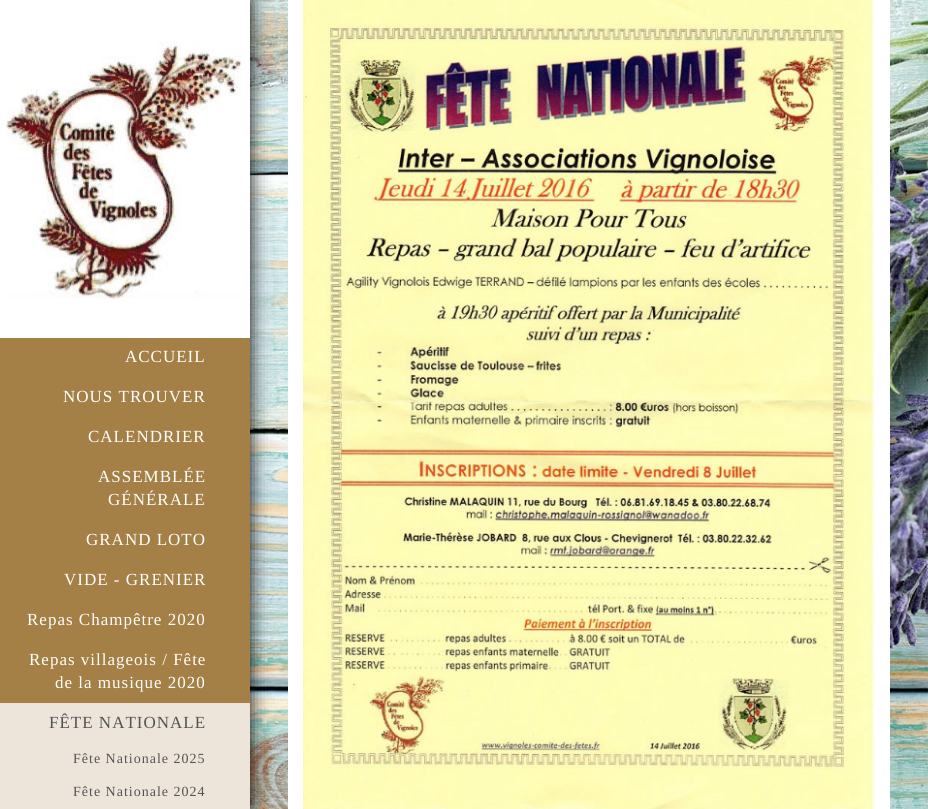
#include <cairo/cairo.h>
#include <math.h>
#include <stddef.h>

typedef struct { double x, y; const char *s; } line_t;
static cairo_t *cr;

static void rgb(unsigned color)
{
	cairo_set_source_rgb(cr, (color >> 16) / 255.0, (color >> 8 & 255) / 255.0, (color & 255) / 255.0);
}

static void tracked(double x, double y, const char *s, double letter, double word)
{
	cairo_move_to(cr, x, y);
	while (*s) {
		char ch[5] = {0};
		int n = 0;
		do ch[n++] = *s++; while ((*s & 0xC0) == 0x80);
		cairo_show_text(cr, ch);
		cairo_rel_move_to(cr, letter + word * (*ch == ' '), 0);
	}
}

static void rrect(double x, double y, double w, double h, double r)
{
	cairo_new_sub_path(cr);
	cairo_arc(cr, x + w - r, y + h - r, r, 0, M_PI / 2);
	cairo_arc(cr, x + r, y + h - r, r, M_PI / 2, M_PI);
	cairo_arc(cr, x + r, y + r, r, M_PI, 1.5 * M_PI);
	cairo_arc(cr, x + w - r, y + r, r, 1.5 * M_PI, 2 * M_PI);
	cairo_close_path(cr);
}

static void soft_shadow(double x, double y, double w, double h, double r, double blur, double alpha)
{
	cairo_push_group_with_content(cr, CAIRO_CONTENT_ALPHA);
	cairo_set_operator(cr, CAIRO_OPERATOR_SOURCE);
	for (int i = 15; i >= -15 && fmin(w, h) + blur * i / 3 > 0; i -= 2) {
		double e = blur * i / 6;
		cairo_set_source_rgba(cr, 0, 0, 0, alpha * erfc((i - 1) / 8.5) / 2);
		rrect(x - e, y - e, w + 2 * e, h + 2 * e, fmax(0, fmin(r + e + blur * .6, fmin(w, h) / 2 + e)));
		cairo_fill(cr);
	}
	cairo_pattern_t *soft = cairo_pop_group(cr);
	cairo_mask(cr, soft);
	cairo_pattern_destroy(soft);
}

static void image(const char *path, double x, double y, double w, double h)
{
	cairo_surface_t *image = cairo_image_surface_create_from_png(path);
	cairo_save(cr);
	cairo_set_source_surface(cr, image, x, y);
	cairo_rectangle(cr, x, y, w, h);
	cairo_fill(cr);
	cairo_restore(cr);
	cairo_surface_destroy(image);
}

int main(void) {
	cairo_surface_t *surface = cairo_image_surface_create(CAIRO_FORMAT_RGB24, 928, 809);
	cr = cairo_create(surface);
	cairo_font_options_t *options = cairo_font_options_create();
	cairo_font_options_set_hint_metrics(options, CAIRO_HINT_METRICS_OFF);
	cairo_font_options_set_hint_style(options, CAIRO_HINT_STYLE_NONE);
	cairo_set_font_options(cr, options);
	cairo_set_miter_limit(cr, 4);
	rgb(0xffffff);
	cairo_paint(cr);
	image("img/1.png", 250, 0, 678, 809);
	rgb(0x000000);
	soft_shadow(0, 0, 250, 809, 0, 10, 1);
	rgb(0xffffff);
	cairo_rectangle(cr, 288, 0, 602, 809);
	cairo_fill(cr);
	image("img/2.png", 303, 0, 571, 809);
	cairo_rectangle(cr, 0, 0, 250, 338);
	cairo_fill(cr);
	image("img/3.png", 5, 42, 237, 258);
	rgb(0xa47f46);
	cairo_rectangle(cr, 0, 338, 250, 365);
	cairo_fill(cr);
	rgb(0xede5da);
	cairo_rectangle(cr, 0, 703, 250, 106);
	cairo_fill(cr);
	cairo_select_font_face(cr, "Liberation Serif", CAIRO_FONT_SLANT_NORMAL, CAIRO_FONT_WEIGHT_NORMAL);
	cairo_set_font_size(cr, 17);
	rgb(0xffffff);
	{
		static const line_t items[] = {
			{125, 362, "ACCUEIL"},
			{63, 402, "NOUS TROUVER"},
			{88, 442, "CALENDRIER"},
			{98, 482, "ASSEMBLÉE"},
			{108, 505, "GÉNÉRALE"},
			{86, 545, "GRAND LOTO"},
			{64, 585, "VIDE - GRENIER"},
			{27, 625, "Repas Champêtre 2020"},
			{29, 665, "Repas villageois / Fête"},
			{55, 688, "de la musique 2020"},
		};
		for (size_t i = 0; i < sizeof items / sizeof *items; i++) {
			tracked(items[i].x, items[i].y, items[i].s, 1, 0);
		}
	}
	rgb(0x535353);
	tracked(49, 728, "FÊTE NATIONALE", 1, 0);
	cairo_set_font_size(cr, 14);
	tracked(73, 763, "Fête Nationale 2025", 1, 0);
	tracked(73, 796, "Fête Nationale 2024", 1, 0);
	cairo_surface_write_to_png(surface, "page.png");
	cairo_font_options_destroy(options);
	cairo_destroy(cr);
	cairo_surface_destroy(surface);
	return 0;
}
